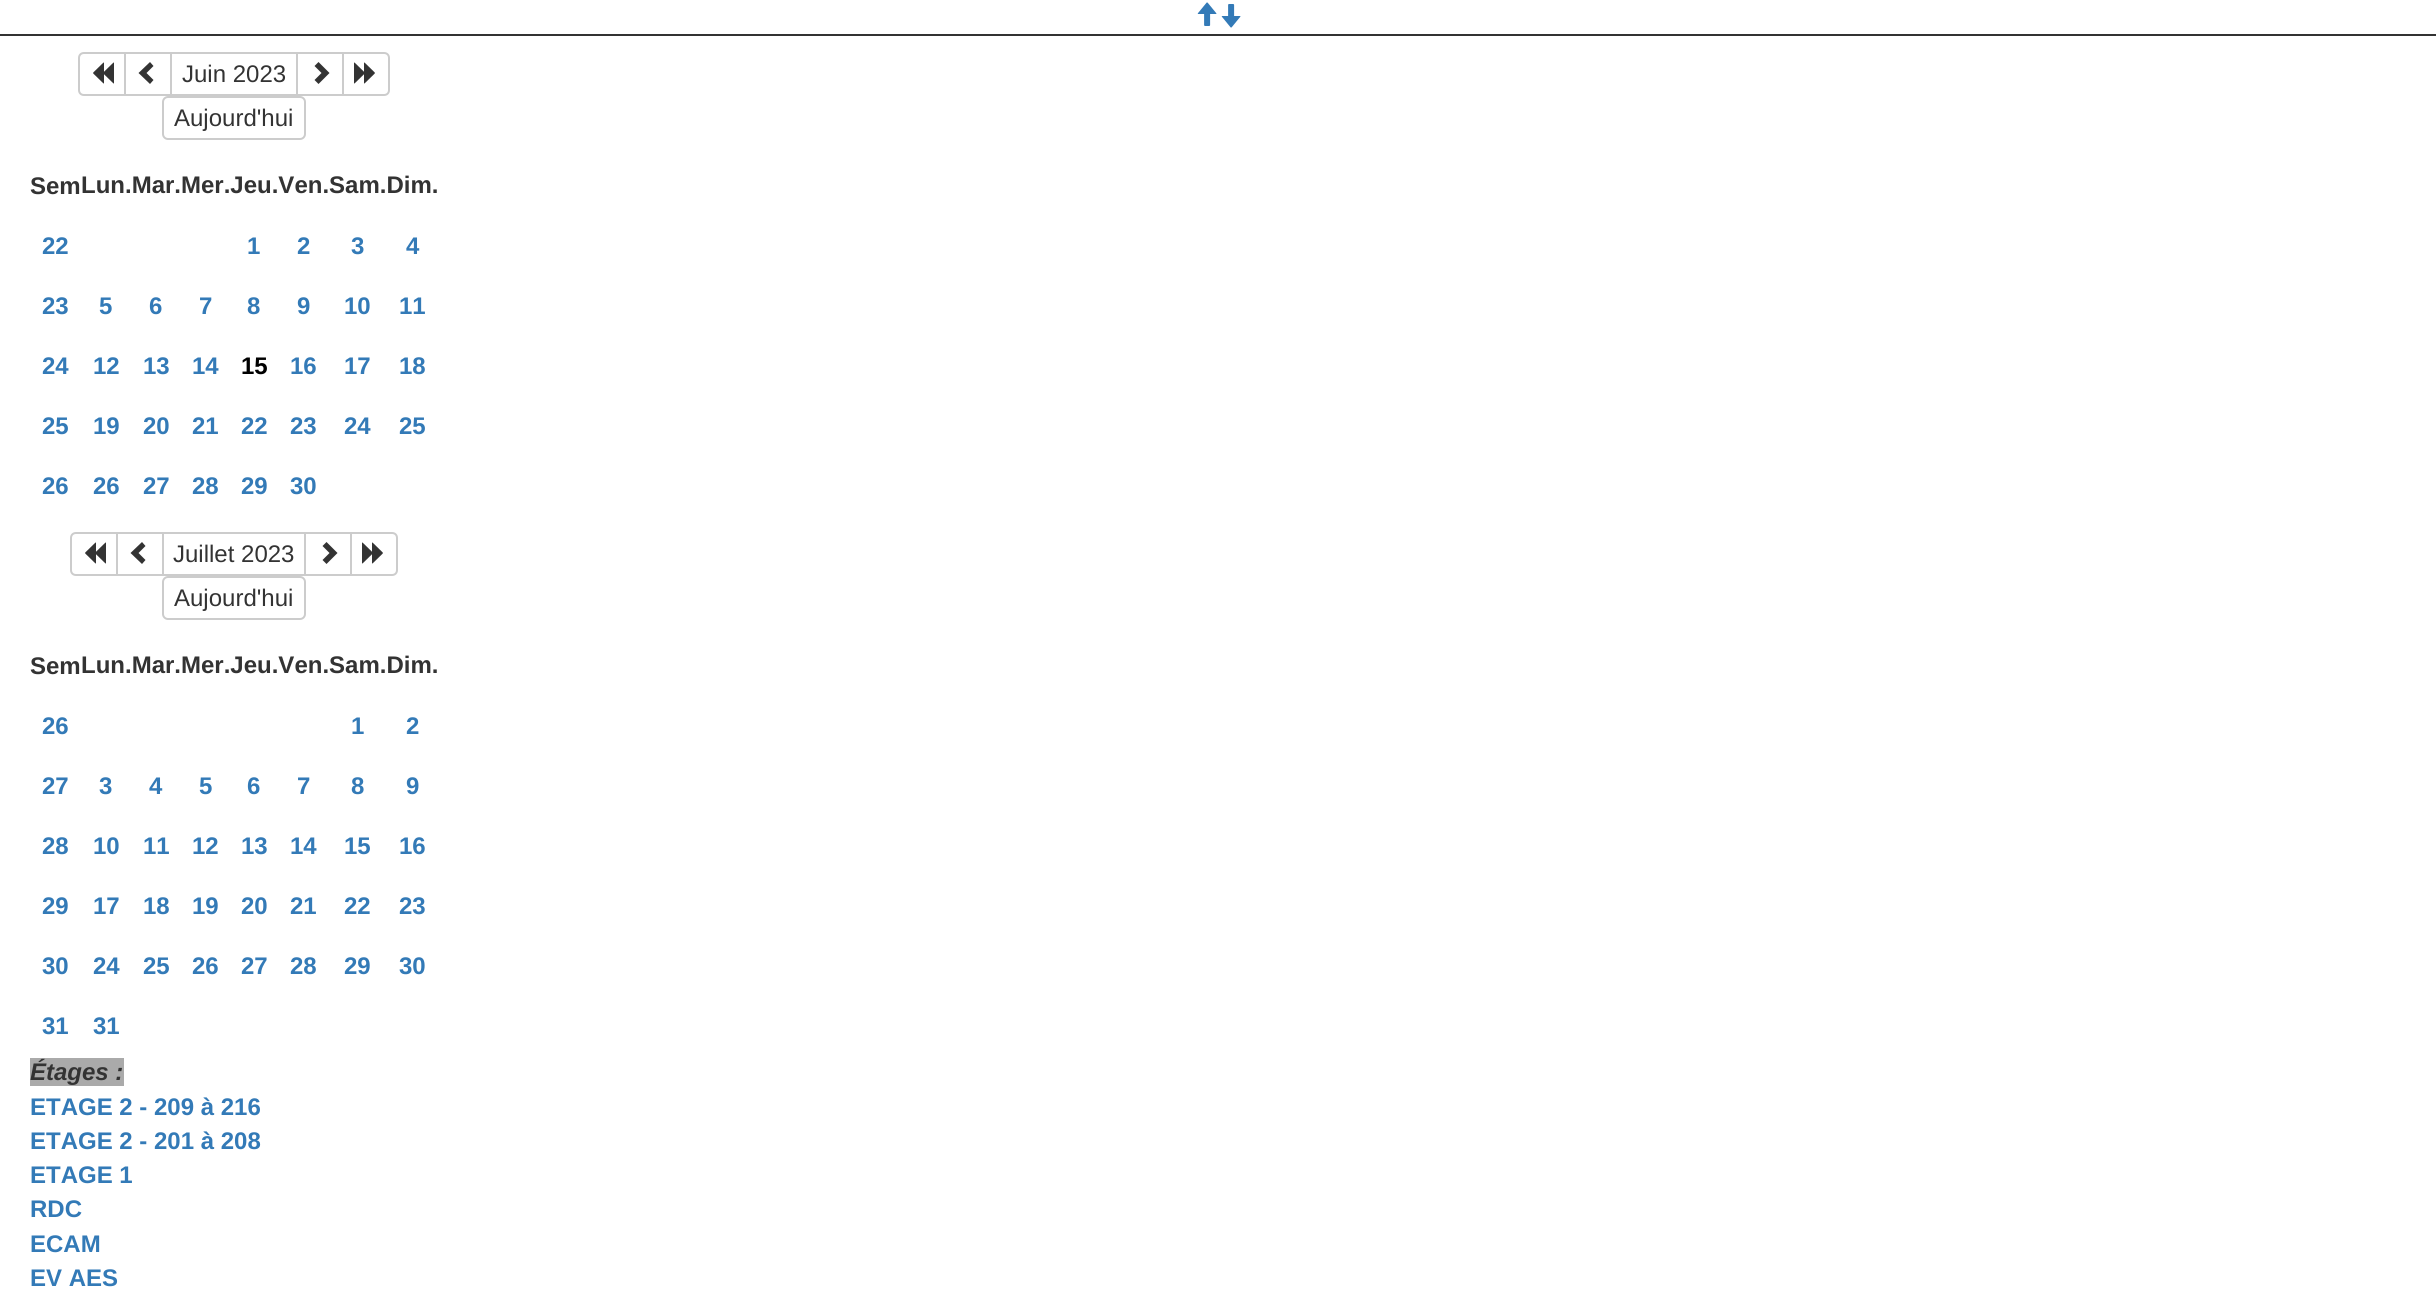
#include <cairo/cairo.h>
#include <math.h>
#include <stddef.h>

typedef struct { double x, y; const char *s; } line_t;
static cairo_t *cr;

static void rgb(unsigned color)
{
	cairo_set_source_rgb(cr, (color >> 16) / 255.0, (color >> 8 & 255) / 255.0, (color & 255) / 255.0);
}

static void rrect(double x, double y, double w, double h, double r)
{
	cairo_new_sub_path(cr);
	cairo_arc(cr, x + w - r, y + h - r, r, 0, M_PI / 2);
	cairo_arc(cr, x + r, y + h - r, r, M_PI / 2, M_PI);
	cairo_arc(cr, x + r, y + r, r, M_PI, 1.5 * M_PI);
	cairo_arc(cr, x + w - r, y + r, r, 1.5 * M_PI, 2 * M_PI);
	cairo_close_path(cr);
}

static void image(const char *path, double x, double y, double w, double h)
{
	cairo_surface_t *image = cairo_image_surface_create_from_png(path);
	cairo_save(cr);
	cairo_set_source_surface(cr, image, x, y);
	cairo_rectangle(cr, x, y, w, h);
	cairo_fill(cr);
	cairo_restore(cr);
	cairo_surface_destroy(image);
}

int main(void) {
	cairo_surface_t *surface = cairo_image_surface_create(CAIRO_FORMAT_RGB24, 2436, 1298);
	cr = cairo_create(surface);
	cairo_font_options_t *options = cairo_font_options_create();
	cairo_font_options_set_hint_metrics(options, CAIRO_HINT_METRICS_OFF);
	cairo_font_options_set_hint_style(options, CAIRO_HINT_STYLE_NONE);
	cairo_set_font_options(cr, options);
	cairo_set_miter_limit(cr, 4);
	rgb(0xffffff);
	cairo_paint(cr);
	rgb(0x333333);
	cairo_rectangle(cr, 0, 34, 2436, 2);
	cairo_fill(cr);
	image("img/1.png", 1197, 2, 20, 24);
	image("img/2.png", 1221, 4, 20, 24);
	cairo_new_path(cr);
	cairo_move_to(cr, 84, 53);
	cairo_line_to(cr, 125, 53);
	cairo_line_to(cr, 125, 95);
	cairo_line_to(cr, 84, 95);
	cairo_curve_to(cr, 81, 95, 79, 93, 79, 90);
	cairo_line_to(cr, 79, 58);
	cairo_curve_to(cr, 79, 55, 81, 53, 84, 53);
	cairo_close_path(cr);
	rgb(0xcccccc);
	cairo_stroke(cr);
	image("img/3.png", 93, 62, 21, 22);
	cairo_rectangle(cr, 125, 53, 46, 42);
	cairo_stroke(cr);
	rgb(0x333333);
	cairo_new_path(cr);
	cairo_move_to(cr, 153.5, 66);
	cairo_line_to(cr, 146.5, 73);
	cairo_line_to(cr, 153.5, 80);
	cairo_line_to(cr, 150, 84);
	cairo_line_to(cr, 138.5, 73);
	cairo_line_to(cr, 150, 62);
	cairo_close_path(cr);
	cairo_fill(cr);
	cairo_rectangle(cr, 171, 53, 126, 42);
	rgb(0xcccccc);
	cairo_stroke(cr);
	cairo_rectangle(cr, 297, 53, 46, 42);
	cairo_stroke(cr);
	rgb(0x333333);
	cairo_new_path(cr);
	cairo_move_to(cr, 329.5, 73);
	cairo_line_to(cr, 318.5, 84);
	cairo_line_to(cr, 314.5, 80);
	cairo_line_to(cr, 321.5, 73);
	cairo_line_to(cr, 314.5, 66);
	cairo_line_to(cr, 318.5, 62);
	cairo_close_path(cr);
	cairo_fill(cr);
	rgb(0xffffff);
	cairo_new_path(cr);
	cairo_move_to(cr, 343, 53);
	cairo_line_to(cr, 384, 53);
	cairo_curve_to(cr, 387, 53, 389, 55, 389, 58);
	cairo_line_to(cr, 389, 90);
	cairo_curve_to(cr, 389, 93, 387, 95, 384, 95);
	cairo_line_to(cr, 343, 95);
	cairo_close_path(cr);
	cairo_fill_preserve(cr);
	rgb(0xcccccc);
	cairo_stroke(cr);
	image("img/4.png", 354, 62, 21, 22);
	rrect(163, 97, 142, 42, 5);
	cairo_stroke(cr);
	cairo_new_path(cr);
	cairo_move_to(cr, 76, 533);
	cairo_line_to(cr, 117, 533);
	cairo_line_to(cr, 117, 575);
	cairo_line_to(cr, 76, 575);
	cairo_curve_to(cr, 73, 575, 71, 573, 71, 570);
	cairo_line_to(cr, 71, 538);
	cairo_curve_to(cr, 71, 535, 73, 533, 76, 533);
	cairo_close_path(cr);
	cairo_stroke(cr);
	image("img/3.png", 85, 542, 21, 22);
	cairo_rectangle(cr, 117, 533, 46, 42);
	cairo_stroke(cr);
	rgb(0x333333);
	cairo_new_path(cr);
	cairo_move_to(cr, 145.5, 546);
	cairo_line_to(cr, 138.5, 553);
	cairo_line_to(cr, 145.5, 560);
	cairo_line_to(cr, 142, 564);
	cairo_line_to(cr, 130.5, 553);
	cairo_line_to(cr, 142, 542);
	cairo_close_path(cr);
	cairo_fill(cr);
	cairo_rectangle(cr, 163, 533, 142, 42);
	rgb(0xcccccc);
	cairo_stroke(cr);
	cairo_rectangle(cr, 305, 533, 46, 42);
	cairo_stroke(cr);
	rgb(0x333333);
	cairo_new_path(cr);
	cairo_move_to(cr, 337.5, 553);
	cairo_line_to(cr, 326.5, 564);
	cairo_line_to(cr, 322.5, 560);
	cairo_line_to(cr, 329.5, 553);
	cairo_line_to(cr, 322.5, 546);
	cairo_line_to(cr, 326.5, 542);
	cairo_close_path(cr);
	cairo_fill(cr);
	rgb(0xffffff);
	cairo_new_path(cr);
	cairo_move_to(cr, 351, 533);
	cairo_line_to(cr, 392, 533);
	cairo_curve_to(cr, 395, 533, 397, 535, 397, 538);
	cairo_line_to(cr, 397, 570);
	cairo_curve_to(cr, 397, 573, 395, 575, 392, 575);
	cairo_line_to(cr, 351, 575);
	cairo_close_path(cr);
	cairo_fill_preserve(cr);
	rgb(0xcccccc);
	cairo_stroke(cr);
	image("img/4.png", 362, 542, 21, 22);
	rrect(163, 577, 142, 42, 5);
	cairo_stroke(cr);
	rgb(0xaaaaaa);
	cairo_rectangle(cr, 30, 1058, 94, 28);
	cairo_fill(cr);
	cairo_select_font_face(cr, "Liberation Sans", CAIRO_FONT_SLANT_NORMAL, CAIRO_FONT_WEIGHT_NORMAL);
	cairo_set_font_size(cr, 24);
	rgb(0x333333);
	cairo_move_to(cr, 182, 82);
	cairo_show_text(cr, "Juin 2023");
	cairo_move_to(cr, 174, 126);
	cairo_show_text(cr, "Aujourd'hui");
	cairo_select_font_face(cr, "Liberation Sans", CAIRO_FONT_SLANT_NORMAL, CAIRO_FONT_WEIGHT_BOLD);
	cairo_move_to(cr, 30, 194);
	cairo_show_text(cr, "Sem");
	cairo_move_to(cr, 81, 193);
	cairo_show_text(cr, "Lun.Mar.Mer.Jeu.Ven.Sam.Dim.");
	rgb(0x337ab7);
	{
		static const line_t items[] = {
			{42, 254, "22"},
			{247, 254, "1"},
			{297, 254, "2"},
			{351, 254, "3"},
			{406, 254, "4"},
			{42, 314, "23"},
			{99, 314, "5"},
			{149, 314, "6"},
			{199, 314, "7"},
			{247, 314, "8"},
			{297, 314, "9"},
			{344, 314, "10"},
			{399, 314, "11"},
			{42, 374, "24"},
			{93, 374, "12"},
			{143, 374, "13"},
			{192, 374, "14"},
		};
		for (size_t i = 0; i < sizeof items / sizeof *items; i++) {
			cairo_move_to(cr, items[i].x, items[i].y);
			cairo_show_text(cr, items[i].s);
		}
	}
	rgb(0x000000);
	cairo_move_to(cr, 241, 374);
	cairo_show_text(cr, "15");
	rgb(0x337ab7);
	{
		static const line_t items[] = {
			{290, 374, "16"},
			{344, 374, "17"},
			{399, 374, "18"},
			{42, 434, "25"},
			{93, 434, "19"},
			{143, 434, "20"},
			{192, 434, "21"},
			{241, 434, "22"},
			{290, 434, "23"},
			{344, 434, "24"},
			{399, 434, "25"},
			{42, 494, "26"},
			{93, 494, "26"},
			{143, 494, "27"},
			{192, 494, "28"},
			{241, 494, "29"},
			{290, 494, "30"},
		};
		for (size_t i = 0; i < sizeof items / sizeof *items; i++) {
			cairo_move_to(cr, items[i].x, items[i].y);
			cairo_show_text(cr, items[i].s);
		}
	}
	cairo_select_font_face(cr, "Liberation Sans", CAIRO_FONT_SLANT_NORMAL, CAIRO_FONT_WEIGHT_NORMAL);
	rgb(0x333333);
	cairo_move_to(cr, 173, 562);
	cairo_show_text(cr, "Juillet 2023");
	cairo_move_to(cr, 174, 606);
	cairo_show_text(cr, "Aujourd'hui");
	cairo_select_font_face(cr, "Liberation Sans", CAIRO_FONT_SLANT_NORMAL, CAIRO_FONT_WEIGHT_BOLD);
	cairo_move_to(cr, 30, 674);
	cairo_show_text(cr, "Sem");
	cairo_move_to(cr, 81, 673);
	cairo_show_text(cr, "Lun.Mar.Mer.Jeu.Ven.Sam.Dim.");
	rgb(0x337ab7);
	{
		static const line_t items[] = {
			{42, 734, "26"},
			{351, 734, "1"},
			{406, 734, "2"},
			{42, 794, "27"},
			{99, 794, "3"},
			{149, 794, "4"},
			{199, 794, "5"},
			{247, 794, "6"},
			{297, 794, "7"},
			{351, 794, "8"},
			{406, 794, "9"},
			{42, 854, "28"},
			{93, 854, "10"},
			{143, 854, "11"},
			{192, 854, "12"},
			{241, 854, "13"},
			{290, 854, "14"},
			{344, 854, "15"},
			{399, 854, "16"},
			{42, 914, "29"},
			{93, 914, "17"},
			{143, 914, "18"},
			{192, 914, "19"},
			{241, 914, "20"},
			{290, 914, "21"},
			{344, 914, "22"},
			{399, 914, "23"},
			{42, 974, "30"},
			{93, 974, "24"},
			{143, 974, "25"},
			{192, 974, "26"},
			{241, 974, "27"},
			{290, 974, "28"},
			{344, 974, "29"},
			{399, 974, "30"},
			{42, 1034, "31"},
			{93, 1034, "31"},
		};
		for (size_t i = 0; i < sizeof items / sizeof *items; i++) {
			cairo_move_to(cr, items[i].x, items[i].y);
			cairo_show_text(cr, items[i].s);
		}
	}
	cairo_select_font_face(cr, "Liberation Sans", CAIRO_FONT_SLANT_ITALIC, CAIRO_FONT_WEIGHT_BOLD);
	rgb(0x333333);
	cairo_move_to(cr, 30, 1080);
	cairo_show_text(cr, "Étages :");
	cairo_select_font_face(cr, "Liberation Sans", CAIRO_FONT_SLANT_NORMAL, CAIRO_FONT_WEIGHT_BOLD);
	rgb(0x337ab7);
	{
		static const line_t items[] = {
			{30, 1115, "ETAGE 2 - 209 à 216"},
			{30, 1149, "ETAGE 2 - 201 à 208"},
			{30, 1183, "ETAGE 1"},
			{30, 1217, "RDC"},
			{30, 1252, "ECAM"},
			{30, 1286, "EV AES"},
		};
		for (size_t i = 0; i < sizeof items / sizeof *items; i++) {
			cairo_move_to(cr, items[i].x, items[i].y);
			cairo_show_text(cr, items[i].s);
		}
	}
	cairo_surface_write_to_png(surface, "page.png");
	cairo_font_options_destroy(options);
	cairo_destroy(cr);
	cairo_surface_destroy(surface);
	return 0;
}
